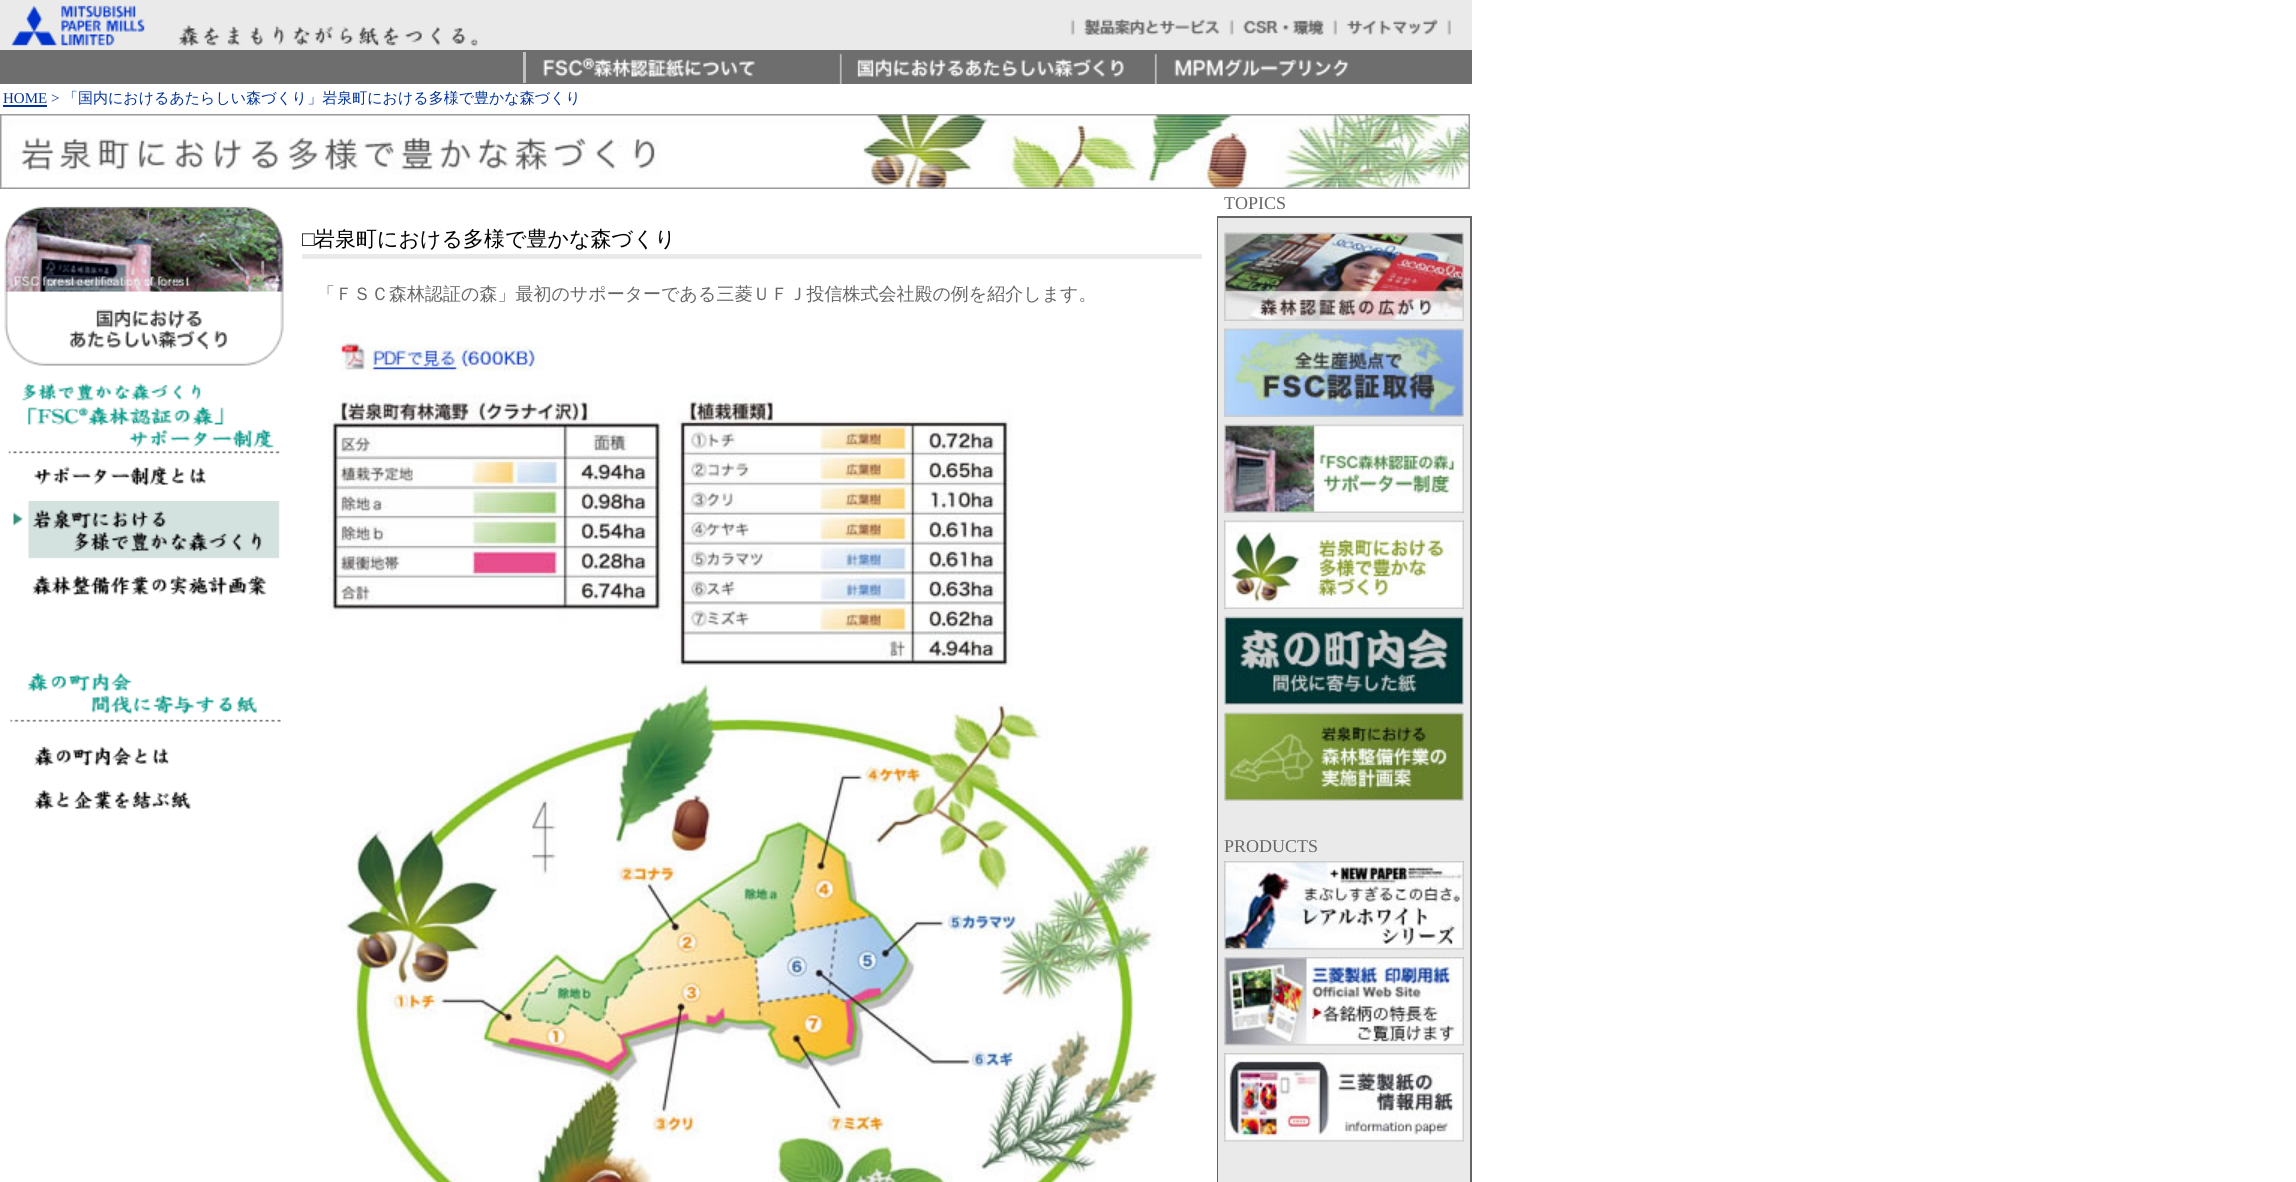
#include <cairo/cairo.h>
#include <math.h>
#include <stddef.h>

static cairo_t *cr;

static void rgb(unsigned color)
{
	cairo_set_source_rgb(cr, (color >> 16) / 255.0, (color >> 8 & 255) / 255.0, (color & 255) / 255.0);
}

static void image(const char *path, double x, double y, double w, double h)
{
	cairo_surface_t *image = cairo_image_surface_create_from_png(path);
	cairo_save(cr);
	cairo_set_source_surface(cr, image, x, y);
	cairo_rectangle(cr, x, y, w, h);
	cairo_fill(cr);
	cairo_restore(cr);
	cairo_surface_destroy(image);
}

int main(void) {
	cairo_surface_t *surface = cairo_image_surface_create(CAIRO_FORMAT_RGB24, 2296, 1182);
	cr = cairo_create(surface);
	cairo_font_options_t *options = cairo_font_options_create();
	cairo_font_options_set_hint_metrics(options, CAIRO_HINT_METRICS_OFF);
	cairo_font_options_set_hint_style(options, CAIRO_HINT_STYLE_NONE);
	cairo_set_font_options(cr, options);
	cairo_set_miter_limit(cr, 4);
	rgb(0xffffff);
	cairo_paint(cr);
	rgb(0xeaeaea);
	cairo_rectangle(cr, 0, 0, 1472, 50);
	cairo_fill(cr);
	image("img/1.png", 11, 5, 467, 42);
	image("img/2.png", 1070, 19, 5, 16);
	image("img/3.png", 1084, 19, 136, 17);
	image("img/4.png", 1229, 19, 5, 16);
	image("img/5.png", 1243, 19, 81, 16);
	image("img/6.png", 1333, 19, 4, 16);
	image("img/7.png", 1346, 19, 92, 16);
	image("img/6.png", 1447, 19, 4, 16);
	rgb(0x6e6e6e);
	cairo_rectangle(cr, 0, 50, 1472, 34);
	cairo_fill(cr);
	rgb(0xc0c0c0);
	cairo_rectangle(cr, 523, 52, 3, 31);
	cairo_fill(cr);
	image("img/8.png", 543, 58, 212, 19);
	image("img/9.png", 839, 53, 3, 31);
	image("img/10.png", 857, 58, 267, 19);
	image("img/11.png", 1154, 53, 3, 31);
	image("img/12.png", 1174, 58, 175, 19);
	rgb(0x003399);
	cairo_rectangle(cr, 3, 105, 44, 2);
	cairo_fill(cr);
	image("img/13.png", 0, 114, 1470, 75);
	image("img/14.png", 4, 206, 280, 248);
	image("img/15.png", 34, 466, 172, 21);
	image("img/16.png", 13, 501, 267, 58);
	image("img/17.png", 32, 575, 235, 21);
	image("img/18.png", 10, 673, 271, 49);
	image("img/19.png", 34, 746, 135, 21);
	image("img/20.png", 34, 790, 157, 21);
	rgb(0xeaeaea);
	cairo_rectangle(cr, 302, 254, 900, 5);
	cairo_fill(cr);
	image("img/21.png", 328, 334, 829, 848);
	rgb(0x666666);
	cairo_rectangle(cr, 1217, 216, 255, 966);
	cairo_fill(cr);
	rgb(0xeaeaea);
	cairo_rectangle(cr, 1218, 218, 252, 964);
	cairo_fill(cr);
	image("img/22.png", 1224, 232, 240, 89);
	image("img/23.png", 1224, 328, 240, 89);
	image("img/24.png", 1224, 424, 240, 89);
	image("img/25.png", 1224, 520, 240, 89);
	image("img/26.png", 1224, 616, 240, 89);
	image("img/27.png", 1224, 712, 240, 89);
	image("img/28.png", 1224, 861, 240, 89);
	image("img/29.png", 1224, 957, 240, 89);
	image("img/30.png", 1224, 1053, 240, 89);
	cairo_select_font_face(cr, "Liberation Serif", CAIRO_FONT_SLANT_NORMAL, CAIRO_FONT_WEIGHT_NORMAL);
	cairo_set_font_size(cr, 15);
	rgb(0x003399);
	cairo_move_to(cr, 3, 103);
	cairo_show_text(cr, "HOME >");
	cairo_select_font_face(cr, "WenQuanYi Zen Hei Medium", CAIRO_FONT_SLANT_NORMAL, CAIRO_FONT_WEIGHT_NORMAL);
	cairo_move_to(cr, 63, 103);
	cairo_show_text(cr, "「国内におけるあたらしい森づくり」岩泉町における多様で豊かな森づくり");
	cairo_select_font_face(cr, "Liberation Serif", CAIRO_FONT_SLANT_NORMAL, CAIRO_FONT_WEIGHT_NORMAL);
	cairo_set_font_size(cr, 21);
	rgb(0x000000);
	cairo_move_to(cr, 302, 246);
	cairo_show_text(cr, "□");
	cairo_select_font_face(cr, "WenQuanYi Zen Hei Medium", CAIRO_FONT_SLANT_NORMAL, CAIRO_FONT_WEIGHT_NORMAL);
	cairo_move_to(cr, 314, 246);
	cairo_show_text(cr, "岩泉町における多様で豊かな森づくり");
	cairo_set_font_size(cr, 18);
	rgb(0x666666);
	cairo_move_to(cr, 317, 300);
	cairo_show_text(cr, "「ＦＳＣ森林認証の森」最初のサポーターである三菱ＵＦＪ投信株式会社殿の例を紹介します。");
	cairo_select_font_face(cr, "Liberation Serif", CAIRO_FONT_SLANT_NORMAL, CAIRO_FONT_WEIGHT_NORMAL);
	cairo_move_to(cr, 1224, 209);
	cairo_show_text(cr, "TOPICS");
	cairo_move_to(cr, 1224, 852);
	cairo_show_text(cr, "PRODUCTS");
	cairo_surface_write_to_png(surface, "page.png");
	cairo_font_options_destroy(options);
	cairo_destroy(cr);
	cairo_surface_destroy(surface);
	return 0;
}
